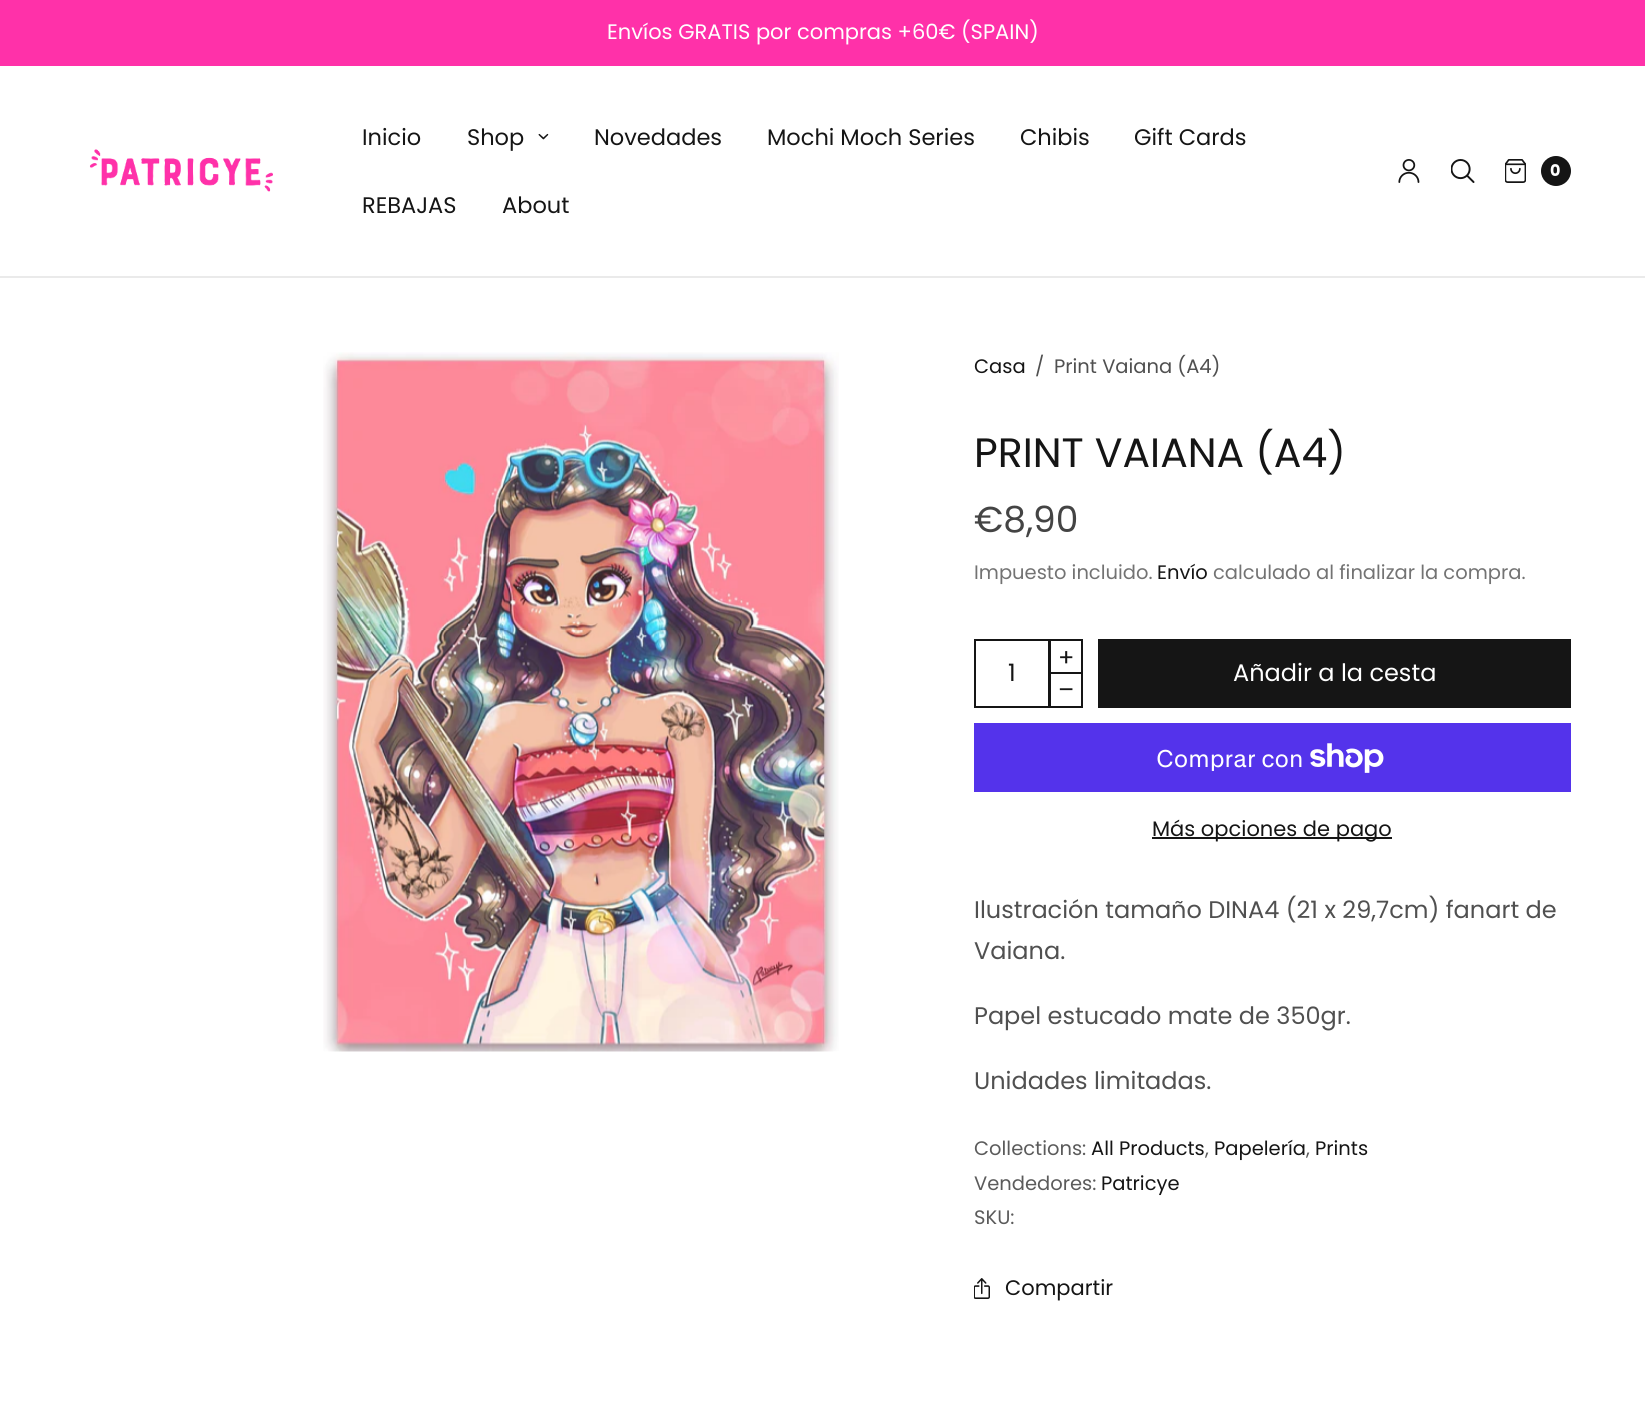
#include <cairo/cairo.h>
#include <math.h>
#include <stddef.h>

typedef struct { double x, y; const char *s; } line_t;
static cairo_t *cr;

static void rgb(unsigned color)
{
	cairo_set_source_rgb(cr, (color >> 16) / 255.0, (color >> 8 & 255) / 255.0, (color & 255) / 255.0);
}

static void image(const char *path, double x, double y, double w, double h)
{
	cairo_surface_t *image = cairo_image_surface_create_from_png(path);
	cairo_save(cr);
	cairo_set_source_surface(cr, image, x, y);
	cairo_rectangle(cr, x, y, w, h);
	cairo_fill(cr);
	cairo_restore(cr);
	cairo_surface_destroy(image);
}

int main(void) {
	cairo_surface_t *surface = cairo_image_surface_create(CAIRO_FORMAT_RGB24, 1645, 1409);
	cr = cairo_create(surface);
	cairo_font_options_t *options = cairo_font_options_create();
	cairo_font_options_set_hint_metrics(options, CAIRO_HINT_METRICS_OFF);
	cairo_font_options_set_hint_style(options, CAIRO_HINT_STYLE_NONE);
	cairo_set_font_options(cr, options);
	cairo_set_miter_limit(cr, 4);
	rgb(0xffffff);
	cairo_paint(cr);
	rgb(0xff31a9);
	cairo_rectangle(cr, 0, 0, 1645, 66);
	cairo_fill(cr);
	rgb(0xeaeaea);
	cairo_rectangle(cr, 0, 276, 1645, 2);
	cairo_fill(cr);
	image("img/1.png", 89, 149, 184, 43);
	image("img/2.png", 538, 133, 11, 7);
	image("img/3.png", 1398, 159, 22, 24);
	image("img/4.png", 1451, 159, 24, 24);
	image("img/5.png", 1505, 159, 21, 24);
	rgb(0x151515);
	cairo_arc(cr, 1556, 171, 15, 0, 2 * M_PI);
	cairo_fill(cr);
	image("img/6.png", 323, 352, 516, 700);
	cairo_rectangle(cr, 975, 640, 74, 67);
	cairo_stroke(cr);
	cairo_rectangle(cr, 1050, 640, 32, 33);
	cairo_stroke(cr);
	cairo_rectangle(cr, 1050, 673, 32, 34);
	cairo_stroke(cr);
	cairo_rectangle(cr, 1098, 639, 473, 69);
	cairo_fill(cr);
	rgb(0x5433eb);
	cairo_rectangle(cr, 974, 723, 597, 69);
	cairo_fill(cr);
	image("img/7.png", 1310, 743, 74, 30);
	rgb(0x151515);
	cairo_rectangle(cr, 1152, 837, 240, 2);
	cairo_fill(cr);
	image("img/8.png", 974, 1278, 16, 21);
	cairo_select_font_face(cr, "Poppins", CAIRO_FONT_SLANT_NORMAL, CAIRO_FONT_WEIGHT_NORMAL);
	cairo_set_font_size(cr, 21);
	rgb(0xffffff);
	cairo_move_to(cr, 607, 39);
	cairo_show_text(cr, "Envíos GRATIS por compras +60€ (SPAIN)");
	cairo_set_font_size(cr, 22.5);
	rgb(0x151515);
	{
		static const line_t items[] = {
			{362, 145, "Inicio"},
			{467, 145, "Shop"},
			{594, 145, "Novedades"},
			{767, 145, "Mochi Moch Series"},
			{1020, 145, "Chibis"},
			{1134, 145, "Gift Cards"},
			{362, 213, "REBAJAS"},
			{502, 213, "About"},
		};
		for (size_t i = 0; i < sizeof items / sizeof *items; i++) {
			cairo_move_to(cr, items[i].x, items[i].y);
			cairo_show_text(cr, items[i].s);
		}
	}
	cairo_select_font_face(cr, "Poppins", CAIRO_FONT_SLANT_NORMAL, CAIRO_FONT_WEIGHT_BOLD);
	cairo_set_font_size(cr, 16);
	rgb(0xffffff);
	cairo_move_to(cr, 1550, 176);
	cairo_show_text(cr, "0");
	cairo_select_font_face(cr, "Poppins", CAIRO_FONT_SLANT_NORMAL, CAIRO_FONT_WEIGHT_NORMAL);
	cairo_set_font_size(cr, 19.5);
	rgb(0x151515);
	cairo_move_to(cr, 974, 373);
	cairo_show_text(cr, "Casa");
	rgb(0x505050);
	cairo_move_to(cr, 1035, 373);
	cairo_show_text(cr, "/");
	cairo_move_to(cr, 1054, 373);
	cairo_show_text(cr, "Print Vaiana (A4)");
	cairo_set_font_size(cr, 41);
	rgb(0x151515);
	cairo_move_to(cr, 974, 467);
	cairo_show_text(cr, "PRINT VAIANA (A4)");
	cairo_set_font_size(cr, 36);
	rgb(0x444444);
	cairo_move_to(cr, 974, 532);
	cairo_show_text(cr, "€8,90");
	cairo_set_font_size(cr, 19.5);
	rgb(0x737373);
	cairo_move_to(cr, 974, 579);
	cairo_show_text(cr, "Impuesto incluido.");
	rgb(0x151515);
	cairo_move_to(cr, 1157, 579);
	cairo_show_text(cr, "Envío");
	rgb(0x737373);
	cairo_move_to(cr, 1213, 579);
	cairo_show_text(cr, "calculado al finalizar la compra.");
	cairo_set_font_size(cr, 24);
	rgb(0x151515);
	{
		static const line_t items[] = {
			{1058, 666, "+"},
			{1008, 681, "1"},
			{1058, 698, "–"},
		};
		for (size_t i = 0; i < sizeof items / sizeof *items; i++) {
			cairo_move_to(cr, items[i].x, items[i].y);
			cairo_show_text(cr, items[i].s);
		}
	}
	rgb(0xffffff);
	cairo_move_to(cr, 1233, 681);
	cairo_show_text(cr, "Añadir a la cesta");
	cairo_select_font_face(cr, "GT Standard", CAIRO_FONT_SLANT_NORMAL, CAIRO_FONT_WEIGHT_NORMAL);
	cairo_move_to(cr, 1156, 767);
	cairo_show_text(cr, "Comprar con");
	cairo_select_font_face(cr, "Poppins", CAIRO_FONT_SLANT_NORMAL, CAIRO_FONT_WEIGHT_NORMAL);
	cairo_set_font_size(cr, 21);
	rgb(0x151515);
	cairo_move_to(cr, 1152, 836);
	cairo_show_text(cr, "Más opciones de pago");
	cairo_set_font_size(cr, 24);
	rgb(0x505050);
	{
		static const line_t items[] = {
			{974, 918, "Ilustración tamaño DINA4 (21 x 29,7cm) fanart de"},
			{974, 959, "Vaiana."},
			{974, 1024, "Papel estucado mate de 350gr."},
			{974, 1089, "Unidades limitadas."},
		};
		for (size_t i = 0; i < sizeof items / sizeof *items; i++) {
			cairo_move_to(cr, items[i].x, items[i].y);
			cairo_show_text(cr, items[i].s);
		}
	}
	cairo_set_font_size(cr, 19.5);
	rgb(0x5b5b5b);
	cairo_move_to(cr, 974, 1155);
	cairo_show_text(cr, "Collections:");
	rgb(0x151515);
	cairo_move_to(cr, 1091, 1155);
	cairo_show_text(cr, "All Products");
	rgb(0x5b5b5b);
	cairo_move_to(cr, 1205, 1155);
	cairo_show_text(cr, ",");
	rgb(0x151515);
	cairo_move_to(cr, 1214, 1155);
	cairo_show_text(cr, "Papelería");
	rgb(0x5b5b5b);
	cairo_move_to(cr, 1306, 1155);
	cairo_show_text(cr, ",");
	rgb(0x151515);
	cairo_move_to(cr, 1315, 1155);
	cairo_show_text(cr, "Prints");
	rgb(0x5b5b5b);
	cairo_move_to(cr, 974, 1190);
	cairo_show_text(cr, "Vendedores:");
	rgb(0x151515);
	cairo_move_to(cr, 1101, 1190);
	cairo_show_text(cr, "Patricye");
	rgb(0x5b5b5b);
	cairo_move_to(cr, 974, 1224);
	cairo_show_text(cr, "SKU:");
	cairo_set_font_size(cr, 21);
	rgb(0x151515);
	cairo_move_to(cr, 1005, 1295);
	cairo_show_text(cr, "Compartir");
	cairo_surface_write_to_png(surface, "page.png");
	cairo_font_options_destroy(options);
	cairo_destroy(cr);
	cairo_surface_destroy(surface);
	return 0;
}
